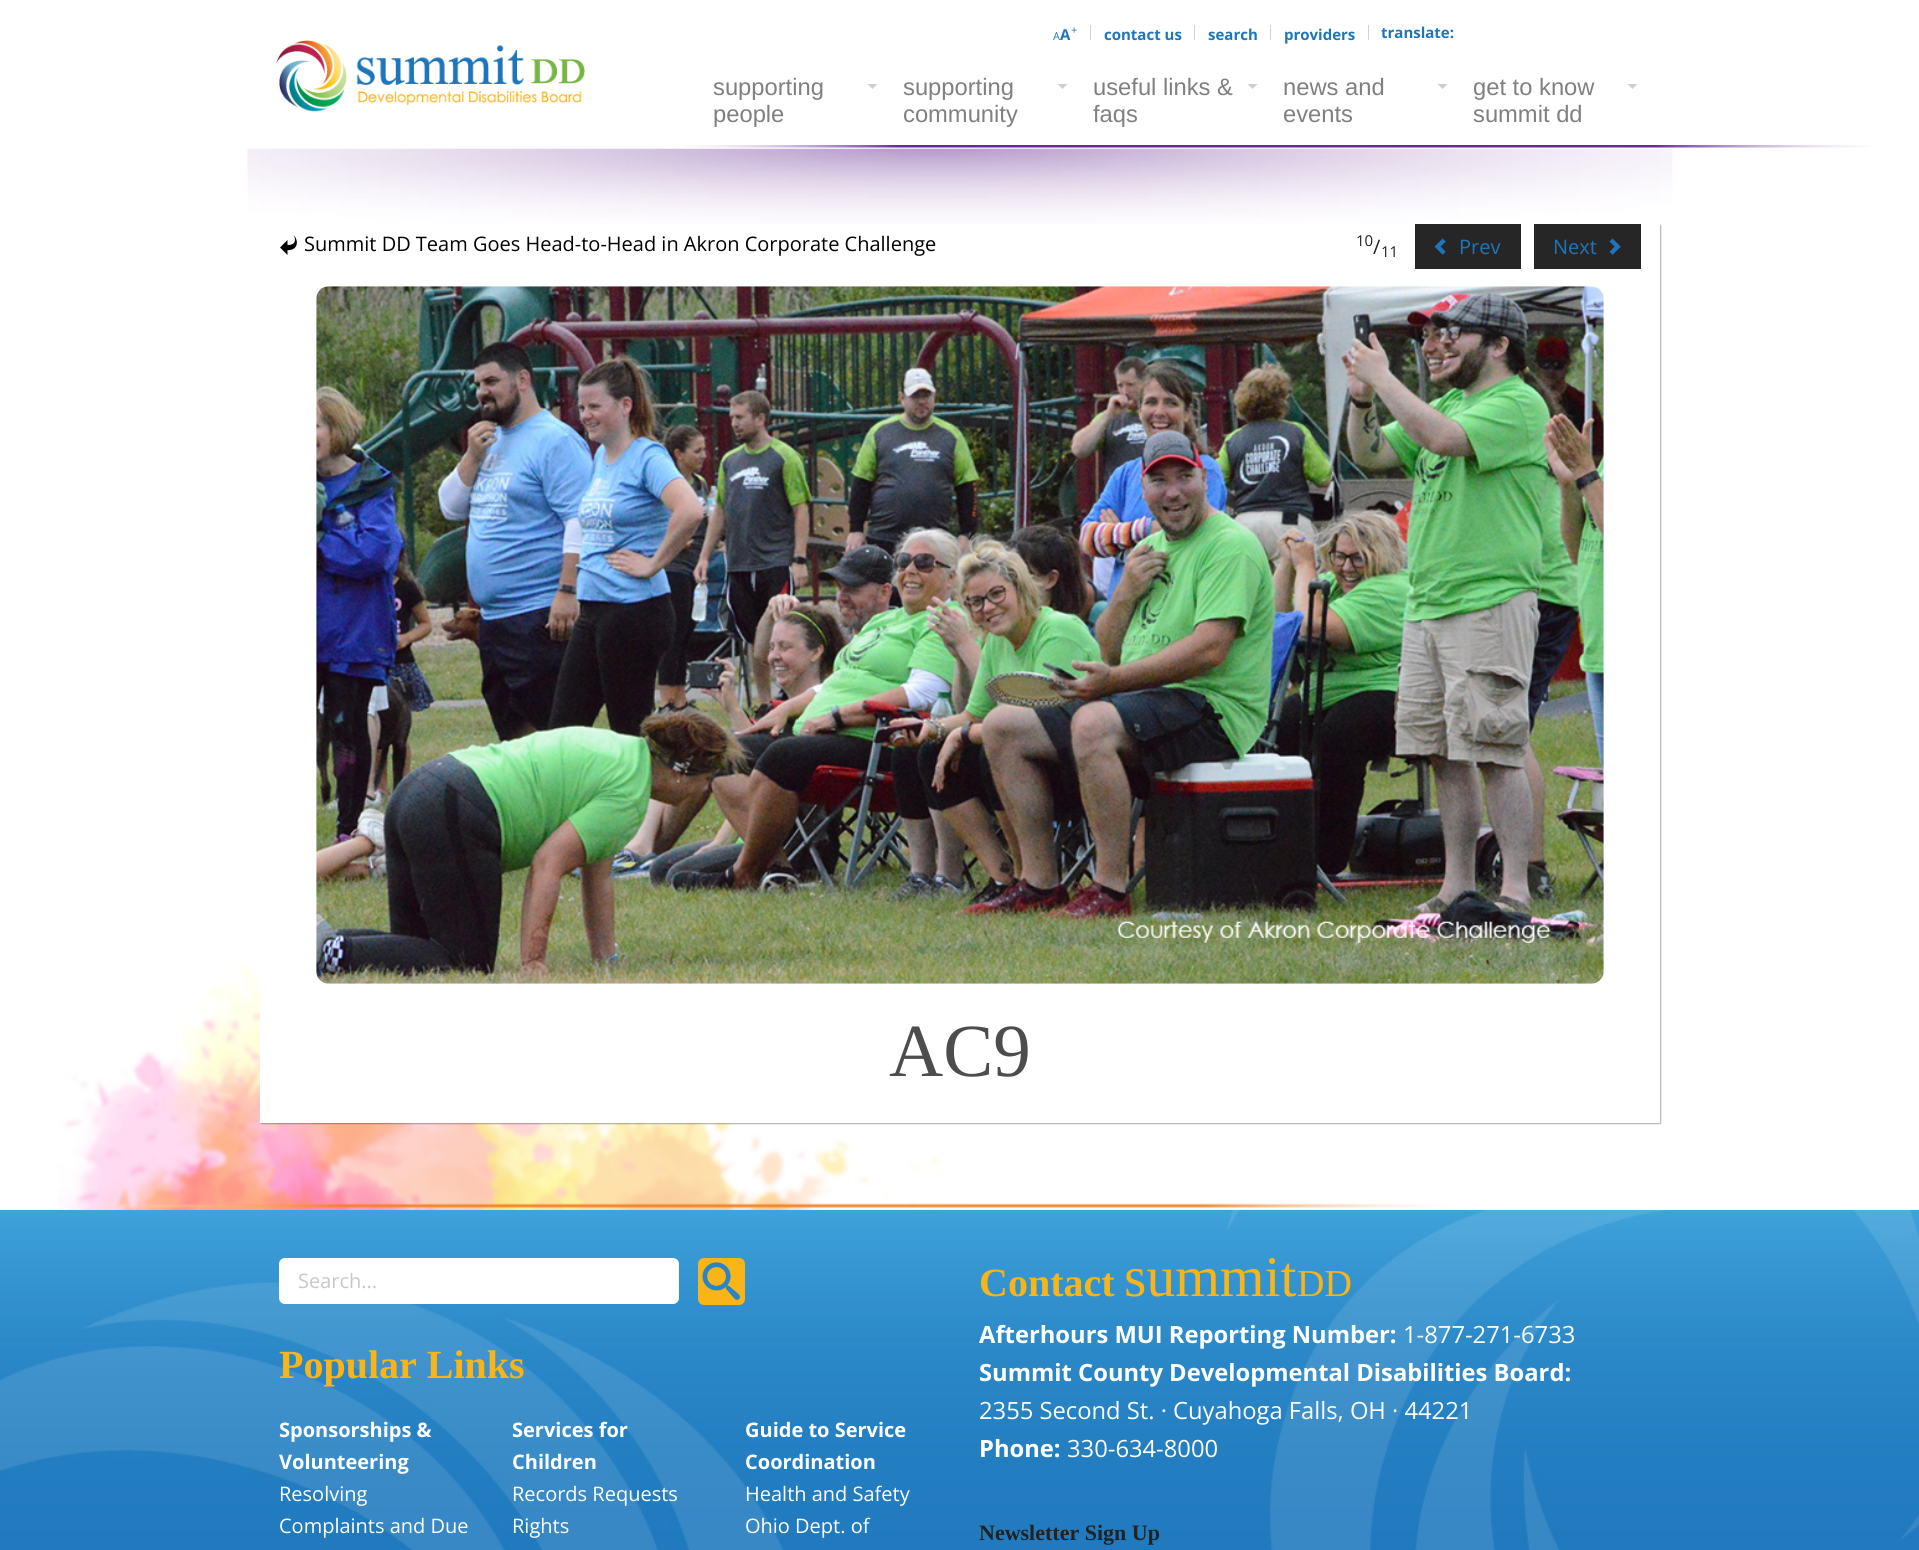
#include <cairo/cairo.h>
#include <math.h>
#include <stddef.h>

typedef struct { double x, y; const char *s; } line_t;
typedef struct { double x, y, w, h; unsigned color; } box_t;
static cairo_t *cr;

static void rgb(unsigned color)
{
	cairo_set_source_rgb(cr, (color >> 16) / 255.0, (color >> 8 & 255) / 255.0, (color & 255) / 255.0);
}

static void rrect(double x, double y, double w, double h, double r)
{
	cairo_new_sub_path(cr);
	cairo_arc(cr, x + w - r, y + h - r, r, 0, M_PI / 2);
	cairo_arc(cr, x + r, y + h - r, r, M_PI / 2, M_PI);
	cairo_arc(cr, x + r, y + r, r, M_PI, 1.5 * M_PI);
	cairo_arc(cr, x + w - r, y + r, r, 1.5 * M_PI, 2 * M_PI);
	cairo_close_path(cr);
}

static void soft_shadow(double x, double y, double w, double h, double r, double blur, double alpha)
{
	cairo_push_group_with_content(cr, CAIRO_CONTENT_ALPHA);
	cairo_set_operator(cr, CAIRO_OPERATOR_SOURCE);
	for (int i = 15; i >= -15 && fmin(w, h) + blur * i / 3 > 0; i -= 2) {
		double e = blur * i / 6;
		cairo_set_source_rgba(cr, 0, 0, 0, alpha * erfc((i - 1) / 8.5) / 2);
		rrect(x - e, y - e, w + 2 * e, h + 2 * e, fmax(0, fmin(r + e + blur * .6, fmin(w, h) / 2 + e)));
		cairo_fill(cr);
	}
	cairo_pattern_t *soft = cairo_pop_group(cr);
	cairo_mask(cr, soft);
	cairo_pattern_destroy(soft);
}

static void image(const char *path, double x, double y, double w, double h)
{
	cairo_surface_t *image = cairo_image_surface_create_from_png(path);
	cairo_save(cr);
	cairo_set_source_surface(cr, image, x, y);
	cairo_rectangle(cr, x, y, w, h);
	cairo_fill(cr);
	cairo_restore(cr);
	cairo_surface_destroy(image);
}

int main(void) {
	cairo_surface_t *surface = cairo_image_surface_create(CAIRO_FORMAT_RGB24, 1919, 1550);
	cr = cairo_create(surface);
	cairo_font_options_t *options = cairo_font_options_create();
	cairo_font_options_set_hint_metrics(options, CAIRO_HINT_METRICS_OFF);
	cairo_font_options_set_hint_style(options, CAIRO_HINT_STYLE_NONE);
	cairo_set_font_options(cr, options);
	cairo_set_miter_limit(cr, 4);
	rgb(0xffffff);
	cairo_paint(cr);
	image("img/1.png", 683, 145, 1188, 3);
	{
		static const box_t items[] = {
			{1090, 25, 1, 15, 0xd3d3d3},
			{1194, 25, 1, 15, 0xd3d3d3},
			{1270, 25, 1, 15, 0xd3d3d3},
			{1368, 25, 1, 15, 0xd3d3d3},
		};
		for (size_t i = 0; i < sizeof items / sizeof *items; i++) {
			rgb(items[i].color);
			cairo_rectangle(cr, items[i].x, items[i].y, items[i].w, items[i].h);
			cairo_fill(cr);
		}
	}
	image("img/2.png", 276, 40, 309, 72);
	rgb(0xcfcfcf);
	cairo_new_path(cr);
	cairo_move_to(cr, 867.5, 84);
	cairo_line_to(cr, 877.5, 84);
	cairo_line_to(cr, 872.5, 89);
	cairo_close_path(cr);
	cairo_fill(cr);
	cairo_new_path(cr);
	cairo_move_to(cr, 1057.5, 84);
	cairo_line_to(cr, 1067.5, 84);
	cairo_line_to(cr, 1062.5, 89);
	cairo_close_path(cr);
	cairo_fill(cr);
	cairo_new_path(cr);
	cairo_move_to(cr, 1247.5, 84);
	cairo_line_to(cr, 1257.5, 84);
	cairo_line_to(cr, 1252.5, 89);
	cairo_close_path(cr);
	cairo_fill(cr);
	cairo_new_path(cr);
	cairo_move_to(cr, 1437.5, 84);
	cairo_line_to(cr, 1447.5, 84);
	cairo_line_to(cr, 1442.5, 89);
	cairo_close_path(cr);
	cairo_fill(cr);
	cairo_new_path(cr);
	cairo_move_to(cr, 1627.5, 84);
	cairo_line_to(cr, 1637.5, 84);
	cairo_line_to(cr, 1632.5, 89);
	cairo_close_path(cr);
	cairo_fill(cr);
	image("img/3.png", 57, 948, 1396, 262);
	image("img/4.png", 247, 148, 1426, 76);
	rgb(0x000000);
	soft_shadow(261, 225, 1400, 899, 0, 0.5, 0.3);
	rgb(0xffffff);
	cairo_rectangle(cr, 260, 224, 1400, 899);
	cairo_fill(cr);
	image("img/5.png", 280, 235, 17, 20);
	rgb(0x262626);
	cairo_rectangle(cr, 1415, 224, 106, 45);
	cairo_fill(cr);
	image("img/6.png", 1434, 238, 12, 17);
	cairo_rectangle(cr, 1534, 224, 107, 45);
	cairo_fill(cr);
	image("img/7.png", 1609, 238, 12, 17);
	image("img/8.png", 316, 286, 1288, 698);
	image("img/9.png", 0, 1210, 1919, 340);
	rgb(0xffffff);
	rrect(279, 1258, 400, 46, 6);
	cairo_fill(cr);
	rgb(0xf9b417);
	rrect(698, 1258, 47, 47, 6);
	cairo_fill(cr);
	image("img/10.png", 702, 1262, 38, 38);
	cairo_select_font_face(cr, "Open Sans", CAIRO_FONT_SLANT_NORMAL, CAIRO_FONT_WEIGHT_BOLD);
	cairo_set_font_size(cr, 15);
	rgb(0x1d76bb);
	cairo_move_to(cr, 1060, 40);
	cairo_show_text(cr, "A");
	cairo_select_font_face(cr, "Open Sans", CAIRO_FONT_SLANT_NORMAL, CAIRO_FONT_WEIGHT_NORMAL);
	cairo_set_font_size(cr, 11);
	cairo_move_to(cr, 1053, 40);
	cairo_show_text(cr, "A");
	cairo_move_to(cr, 1071, 34);
	cairo_show_text(cr, "+");
	cairo_select_font_face(cr, "Open Sans", CAIRO_FONT_SLANT_NORMAL, CAIRO_FONT_WEIGHT_BOLD);
	cairo_set_font_size(cr, 15);
	{
		static const line_t items[] = {
			{1104, 40, "contact us"},
			{1208, 40, "search"},
			{1284, 40, "providers"},
			{1381, 38, "translate:"},
		};
		for (size_t i = 0; i < sizeof items / sizeof *items; i++) {
			cairo_move_to(cr, items[i].x, items[i].y);
			cairo_show_text(cr, items[i].s);
		}
	}
	cairo_select_font_face(cr, "Liberation Sans", CAIRO_FONT_SLANT_NORMAL, CAIRO_FONT_WEIGHT_NORMAL);
	cairo_set_font_size(cr, 23.75);
	rgb(0x808080);
	{
		static const line_t items[] = {
			{713, 95, "supporting"},
			{713, 122, "people"},
			{903, 95, "supporting"},
			{903, 122, "community"},
			{1093, 95, "useful links &"},
			{1093, 122, "faqs"},
			{1283, 95, "news and"},
			{1283, 122, "events"},
			{1473, 95, "get to know"},
			{1473, 122, "summit dd"},
		};
		for (size_t i = 0; i < sizeof items / sizeof *items; i++) {
			cairo_move_to(cr, items[i].x, items[i].y);
			cairo_show_text(cr, items[i].s);
		}
	}
	cairo_select_font_face(cr, "Open Sans", CAIRO_FONT_SLANT_NORMAL, CAIRO_FONT_WEIGHT_NORMAL);
	cairo_set_font_size(cr, 20);
	rgb(0x010000);
	cairo_move_to(cr, 304, 251);
	cairo_show_text(cr, "Summit DD Team Goes Head-to-Head in Akron Corporate Challenge");
	cairo_set_font_size(cr, 15);
	rgb(0x222222);
	cairo_move_to(cr, 1356, 246);
	cairo_show_text(cr, "10");
	cairo_set_font_size(cr, 20);
	cairo_move_to(cr, 1373, 254);
	cairo_show_text(cr, "/");
	cairo_set_font_size(cr, 15);
	cairo_move_to(cr, 1381, 257);
	cairo_show_text(cr, "11");
	cairo_set_font_size(cr, 20);
	rgb(0x1d76bb);
	cairo_move_to(cr, 1459, 254);
	cairo_show_text(cr, "Prev");
	cairo_move_to(cr, 1553, 254);
	cairo_show_text(cr, "Next");
	cairo_select_font_face(cr, "Liberation Serif", CAIRO_FONT_SLANT_NORMAL, CAIRO_FONT_WEIGHT_NORMAL);
	cairo_set_font_size(cr, 75);
	rgb(0x4d4d4d);
	cairo_move_to(cr, 889, 1076);
	cairo_show_text(cr, "AC9");
	cairo_select_font_face(cr, "Open Sans", CAIRO_FONT_SLANT_NORMAL, CAIRO_FONT_WEIGHT_NORMAL);
	cairo_set_font_size(cr, 20);
	rgb(0xc8c8c8);
	cairo_move_to(cr, 298, 1288);
	cairo_show_text(cr, "Search...");
	cairo_select_font_face(cr, "Liberation Serif", CAIRO_FONT_SLANT_NORMAL, CAIRO_FONT_WEIGHT_BOLD);
	cairo_set_font_size(cr, 40);
	rgb(0xf9b417);
	cairo_move_to(cr, 279, 1378);
	cairo_show_text(cr, "Popular Links");
	cairo_select_font_face(cr, "Open Sans", CAIRO_FONT_SLANT_NORMAL, CAIRO_FONT_WEIGHT_BOLD);
	cairo_set_font_size(cr, 20);
	rgb(0xffffff);
	cairo_move_to(cr, 279, 1437);
	cairo_show_text(cr, "Sponsorships &");
	cairo_move_to(cr, 279, 1469);
	cairo_show_text(cr, "Volunteering");
	cairo_select_font_face(cr, "Open Sans", CAIRO_FONT_SLANT_NORMAL, CAIRO_FONT_WEIGHT_NORMAL);
	cairo_move_to(cr, 279, 1501);
	cairo_show_text(cr, "Resolving");
	cairo_move_to(cr, 279, 1533);
	cairo_show_text(cr, "Complaints and Due");
	cairo_select_font_face(cr, "Open Sans", CAIRO_FONT_SLANT_NORMAL, CAIRO_FONT_WEIGHT_BOLD);
	cairo_move_to(cr, 512, 1437);
	cairo_show_text(cr, "Services for");
	cairo_move_to(cr, 512, 1469);
	cairo_show_text(cr, "Children");
	cairo_select_font_face(cr, "Open Sans", CAIRO_FONT_SLANT_NORMAL, CAIRO_FONT_WEIGHT_NORMAL);
	cairo_move_to(cr, 512, 1501);
	cairo_show_text(cr, "Records Requests");
	cairo_move_to(cr, 512, 1533);
	cairo_show_text(cr, "Rights");
	cairo_select_font_face(cr, "Open Sans", CAIRO_FONT_SLANT_NORMAL, CAIRO_FONT_WEIGHT_BOLD);
	cairo_move_to(cr, 745, 1437);
	cairo_show_text(cr, "Guide to Service");
	cairo_move_to(cr, 745, 1469);
	cairo_show_text(cr, "Coordination");
	cairo_select_font_face(cr, "Open Sans", CAIRO_FONT_SLANT_NORMAL, CAIRO_FONT_WEIGHT_NORMAL);
	cairo_move_to(cr, 745, 1501);
	cairo_show_text(cr, "Health and Safety");
	cairo_move_to(cr, 745, 1533);
	cairo_show_text(cr, "Ohio Dept. of");
	cairo_select_font_face(cr, "Liberation Serif", CAIRO_FONT_SLANT_NORMAL, CAIRO_FONT_WEIGHT_BOLD);
	cairo_set_font_size(cr, 40);
	rgb(0xf9b417);
	cairo_move_to(cr, 979, 1296);
	cairo_show_text(cr, "Contact");
	cairo_select_font_face(cr, "Liberation Serif", CAIRO_FONT_SLANT_NORMAL, CAIRO_FONT_WEIGHT_NORMAL);
	cairo_set_font_size(cr, 57.5);
	cairo_move_to(cr, 1124, 1296);
	cairo_show_text(cr, "summit");
	cairo_set_font_size(cr, 38);
	cairo_move_to(cr, 1297, 1296);
	cairo_show_text(cr, "DD");
	cairo_select_font_face(cr, "Open Sans", CAIRO_FONT_SLANT_NORMAL, CAIRO_FONT_WEIGHT_BOLD);
	cairo_set_font_size(cr, 23.75);
	rgb(0xffffff);
	cairo_move_to(cr, 979, 1343);
	cairo_show_text(cr, "Afterhours MUI Reporting Number:");
	cairo_select_font_face(cr, "Open Sans", CAIRO_FONT_SLANT_NORMAL, CAIRO_FONT_WEIGHT_NORMAL);
	cairo_move_to(cr, 1403, 1343);
	cairo_show_text(cr, "1-877-271-6733");
	cairo_select_font_face(cr, "Open Sans", CAIRO_FONT_SLANT_NORMAL, CAIRO_FONT_WEIGHT_BOLD);
	cairo_move_to(cr, 979, 1381);
	cairo_show_text(cr, "Summit County Developmental Disabilities Board:");
	cairo_select_font_face(cr, "Open Sans", CAIRO_FONT_SLANT_NORMAL, CAIRO_FONT_WEIGHT_NORMAL);
	cairo_move_to(cr, 979, 1419);
	cairo_show_text(cr, "2355 Second St. · Cuyahoga Falls, OH · 44221");
	cairo_select_font_face(cr, "Open Sans", CAIRO_FONT_SLANT_NORMAL, CAIRO_FONT_WEIGHT_BOLD);
	cairo_move_to(cr, 979, 1457);
	cairo_show_text(cr, "Phone:");
	cairo_select_font_face(cr, "Open Sans", CAIRO_FONT_SLANT_NORMAL, CAIRO_FONT_WEIGHT_NORMAL);
	cairo_move_to(cr, 1067, 1457);
	cairo_show_text(cr, "330-634-8000");
	cairo_select_font_face(cr, "Liberation Serif", CAIRO_FONT_SLANT_NORMAL, CAIRO_FONT_WEIGHT_BOLD);
	cairo_set_font_size(cr, 22);
	rgb(0x222222);
	cairo_move_to(cr, 979, 1540);
	cairo_show_text(cr, "Newsletter Sign Up");
	cairo_surface_write_to_png(surface, "page.png");
	cairo_font_options_destroy(options);
	cairo_destroy(cr);
	cairo_surface_destroy(surface);
	return 0;
}
